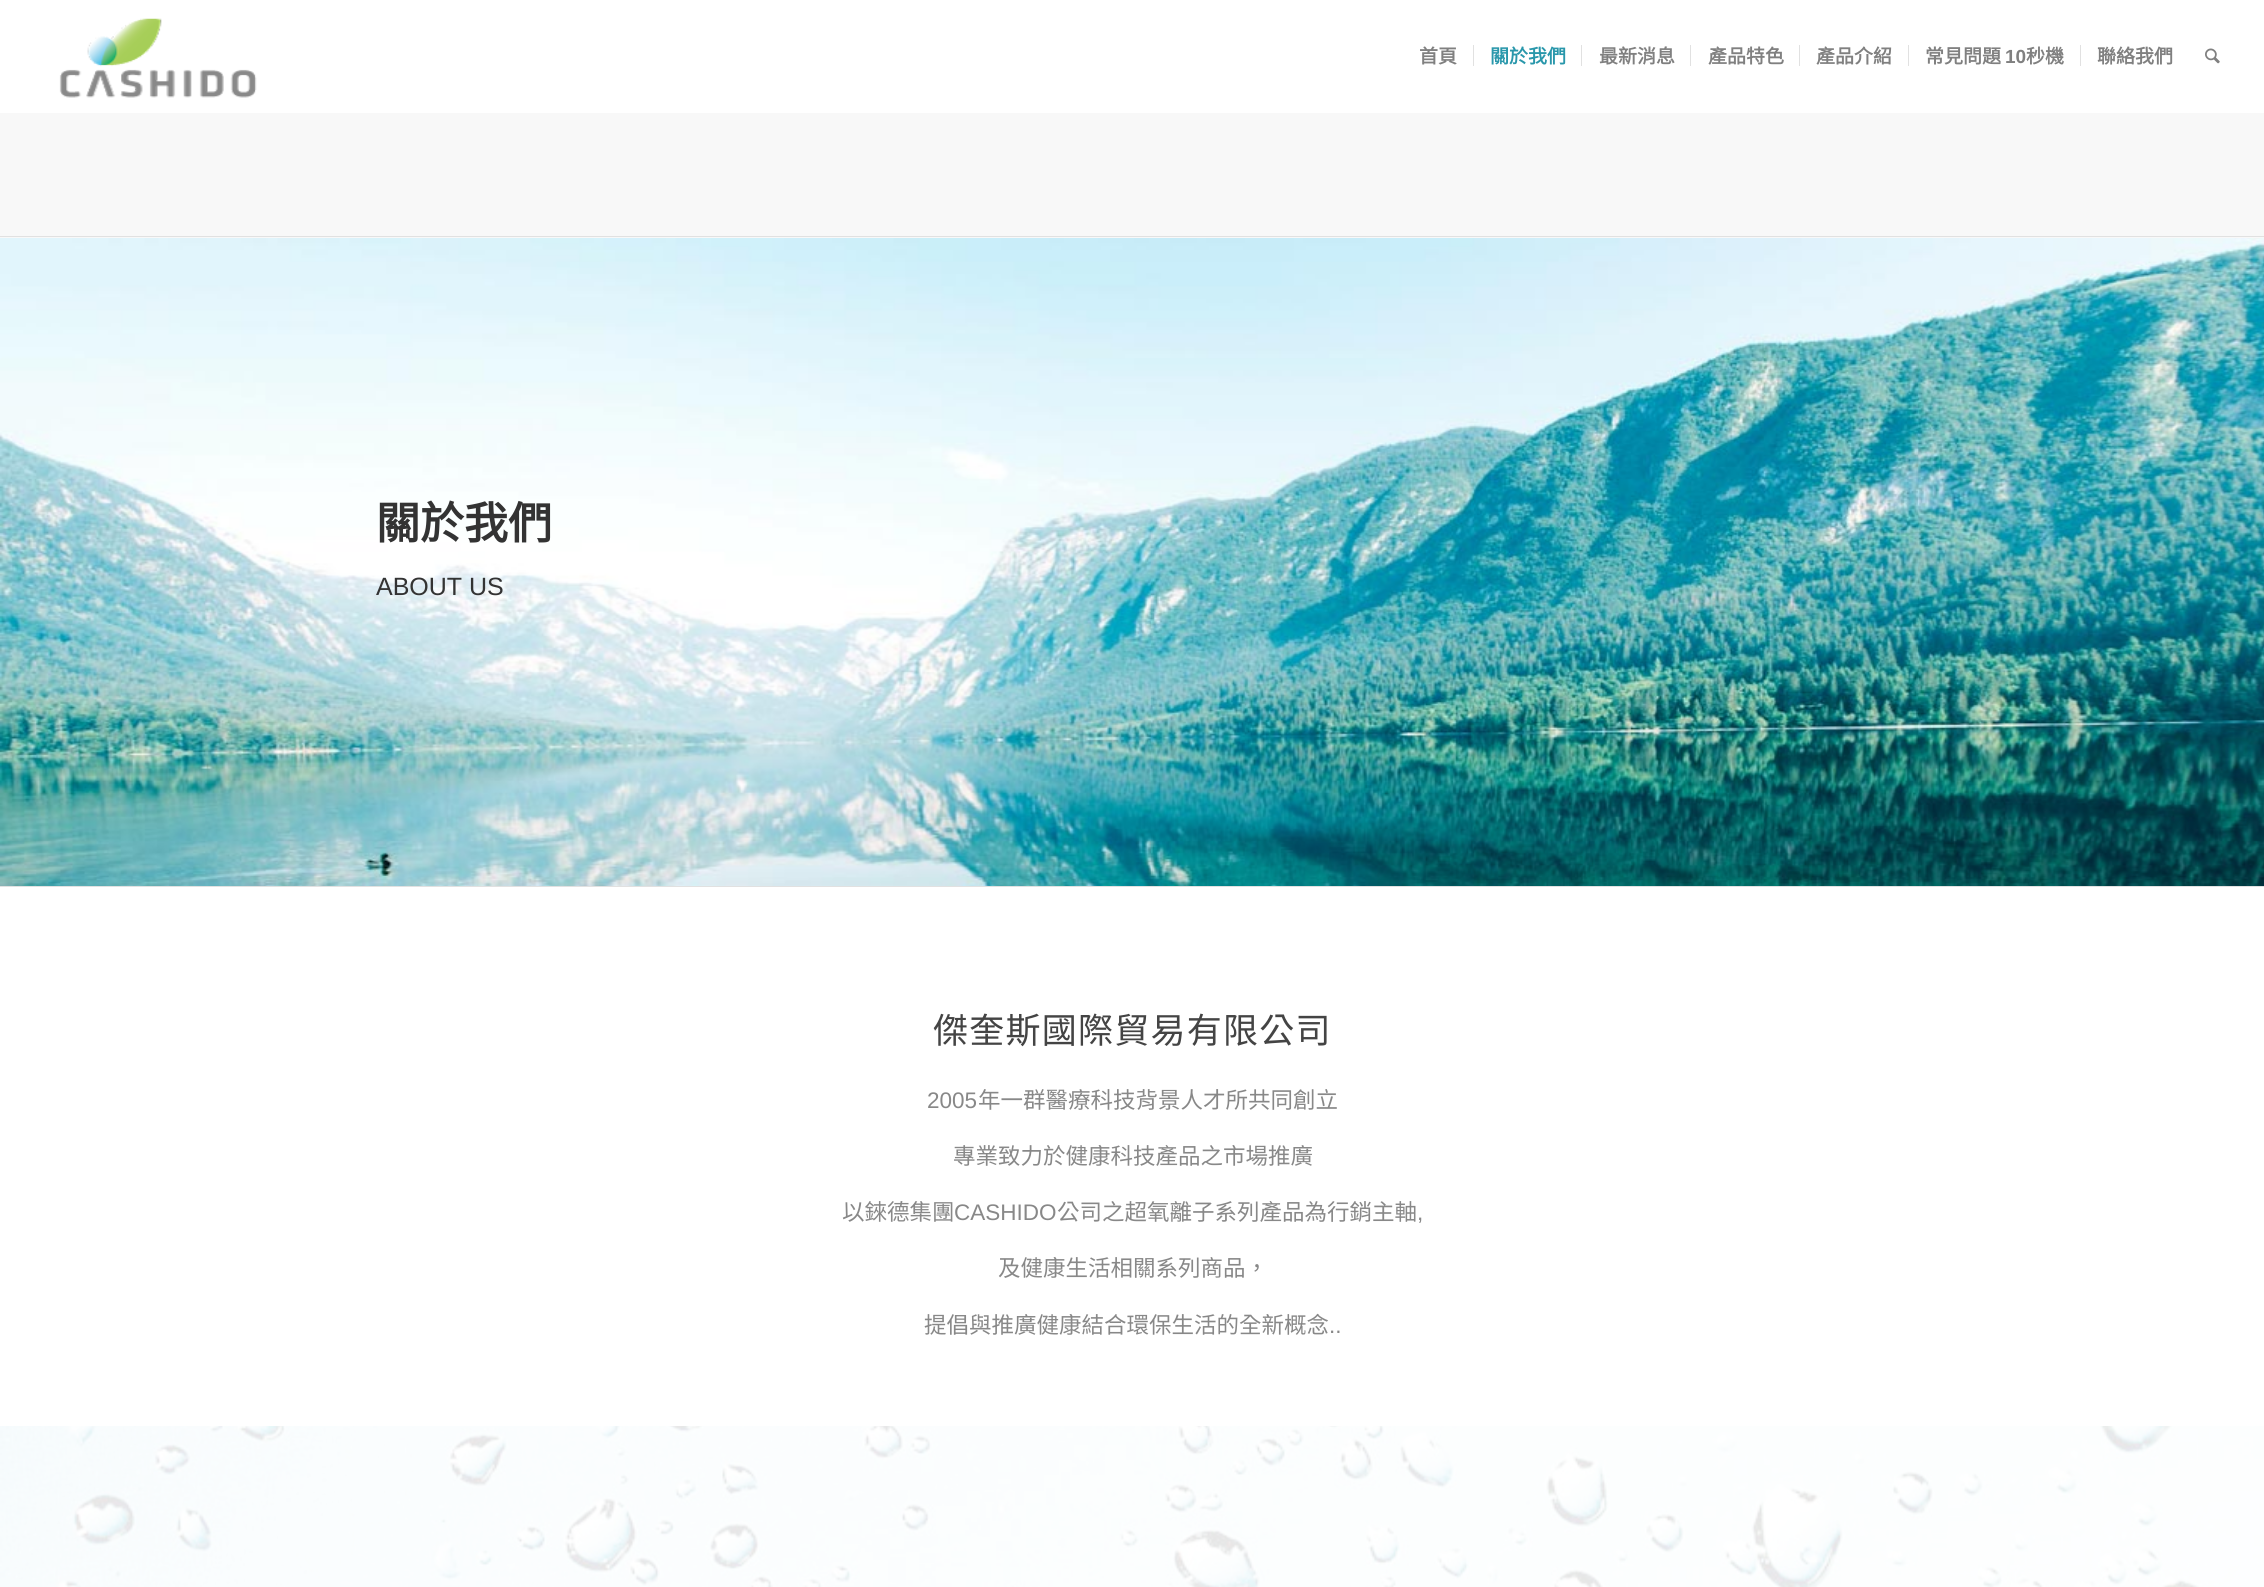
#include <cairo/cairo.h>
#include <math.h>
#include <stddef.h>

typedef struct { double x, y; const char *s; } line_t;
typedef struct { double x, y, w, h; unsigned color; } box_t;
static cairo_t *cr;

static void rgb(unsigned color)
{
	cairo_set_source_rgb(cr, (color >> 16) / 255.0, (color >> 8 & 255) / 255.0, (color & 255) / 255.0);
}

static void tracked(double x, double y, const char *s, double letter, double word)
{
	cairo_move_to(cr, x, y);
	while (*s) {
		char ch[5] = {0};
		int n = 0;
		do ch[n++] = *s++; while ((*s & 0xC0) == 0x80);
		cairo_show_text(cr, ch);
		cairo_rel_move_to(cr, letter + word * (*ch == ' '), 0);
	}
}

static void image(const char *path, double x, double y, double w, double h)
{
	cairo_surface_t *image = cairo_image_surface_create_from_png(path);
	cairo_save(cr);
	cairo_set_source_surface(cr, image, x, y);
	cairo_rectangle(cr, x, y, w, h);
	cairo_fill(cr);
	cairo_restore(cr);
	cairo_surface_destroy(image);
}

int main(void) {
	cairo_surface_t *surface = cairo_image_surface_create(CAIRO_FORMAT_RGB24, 2264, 1587);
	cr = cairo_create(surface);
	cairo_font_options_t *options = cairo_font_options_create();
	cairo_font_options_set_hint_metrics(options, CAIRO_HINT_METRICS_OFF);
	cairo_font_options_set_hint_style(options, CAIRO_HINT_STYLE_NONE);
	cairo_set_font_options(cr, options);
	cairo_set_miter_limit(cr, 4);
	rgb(0xffffff);
	cairo_paint(cr);
	image("img/1.png", 59, 18, 198, 80);
	{
		static const box_t items[] = {
			{1473, 45, 1, 21, 0xe1e1e1},
			{1581, 45, 1, 21, 0xe1e1e1},
			{1690, 45, 1, 21, 0xe1e1e1},
			{1799, 45, 1, 21, 0xe1e1e1},
			{1908, 45, 1, 21, 0xe1e1e1},
			{2080, 45, 1, 21, 0xe1e1e1},
		};
		for (size_t i = 0; i < sizeof items / sizeof *items; i++) {
			rgb(items[i].color);
			cairo_rectangle(cr, items[i].x, items[i].y, items[i].w, items[i].h);
			cairo_fill(cr);
		}
	}
	image("img/2.png", 2205, 48, 15, 16);
	{
		static const box_t items[] = {
			{0, 113, 2264, 123, 0xf8f8f8},
			{0, 237, 2264, 1, 0xf8f8f8},
			{0, 236, 2264, 1, 0xe1e1e1},
		};
		for (size_t i = 0; i < sizeof items / sizeof *items; i++) {
			rgb(items[i].color);
			cairo_rectangle(cr, items[i].x, items[i].y, items[i].w, items[i].h);
			cairo_fill(cr);
		}
	}
	image("img/3.png", 0, 238, 2264, 648);
	cairo_rectangle(cr, 0, 886, 2264, 1);
	cairo_fill(cr);
	image("img/4.png", 0, 1426, 2264, 161);
	cairo_select_font_face(cr, "Noto Sans CJK TC", CAIRO_FONT_SLANT_NORMAL, CAIRO_FONT_WEIGHT_BOLD);
	cairo_set_font_size(cr, 19);
	rgb(0x808080);
	cairo_move_to(cr, 1419, 63);
	cairo_show_text(cr, "首頁");
	rgb(0x2997ab);
	cairo_move_to(cr, 1490, 63);
	cairo_show_text(cr, "關於我們");
	rgb(0x808080);
	{
		static const line_t items[] = {
			{1599, 63, "最新消息"},
			{1708, 63, "產品特色"},
			{1816, 63, "產品介紹"},
			{1925, 63, "常見問題"},
		};
		for (size_t i = 0; i < sizeof items / sizeof *items; i++) {
			cairo_move_to(cr, items[i].x, items[i].y);
			cairo_show_text(cr, items[i].s);
		}
	}
	cairo_select_font_face(cr, "Liberation Sans", CAIRO_FONT_SLANT_NORMAL, CAIRO_FONT_WEIGHT_BOLD);
	cairo_move_to(cr, 2005, 63);
	cairo_show_text(cr, "10");
	cairo_select_font_face(cr, "Noto Sans CJK TC", CAIRO_FONT_SLANT_NORMAL, CAIRO_FONT_WEIGHT_BOLD);
	cairo_move_to(cr, 2026, 63);
	cairo_show_text(cr, "秒機");
	cairo_move_to(cr, 2097, 63);
	cairo_show_text(cr, "聯絡我們");
	cairo_set_font_size(cr, 44);
	rgb(0x333333);
	cairo_move_to(cr, 376, 539);
	cairo_show_text(cr, "關於我們");
	cairo_select_font_face(cr, "Liberation Sans", CAIRO_FONT_SLANT_NORMAL, CAIRO_FONT_WEIGHT_NORMAL);
	cairo_set_font_size(cr, 25);
	cairo_move_to(cr, 376, 595);
	cairo_show_text(cr, "ABOUT US");
	cairo_select_font_face(cr, "Noto Sans CJK TC", CAIRO_FONT_SLANT_NORMAL, CAIRO_FONT_WEIGHT_NORMAL);
	cairo_set_font_size(cr, 35);
	rgb(0x444444);
	tracked(933, 1043, "傑奎斯國際貿易有限公司", 1.25, 0);
	cairo_select_font_face(cr, "Liberation Sans", CAIRO_FONT_SLANT_NORMAL, CAIRO_FONT_WEIGHT_NORMAL);
	cairo_set_font_size(cr, 22.5);
	rgb(0x888888);
	cairo_move_to(cr, 927, 1108);
	cairo_show_text(cr, "2005");
	cairo_select_font_face(cr, "Noto Sans CJK TC", CAIRO_FONT_SLANT_NORMAL, CAIRO_FONT_WEIGHT_NORMAL);
	{
		static const line_t items[] = {
			{978, 1108, "年一群醫療科技背景人才所共同創立"},
			{953, 1164, "專業致力於健康科技產品之市場推廣"},
			{842, 1220, "以錸德集團"},
		};
		for (size_t i = 0; i < sizeof items / sizeof *items; i++) {
			cairo_move_to(cr, items[i].x, items[i].y);
			cairo_show_text(cr, items[i].s);
		}
	}
	cairo_select_font_face(cr, "Liberation Sans", CAIRO_FONT_SLANT_NORMAL, CAIRO_FONT_WEIGHT_NORMAL);
	cairo_move_to(cr, 954, 1220);
	cairo_show_text(cr, "CASHIDO");
	cairo_select_font_face(cr, "Noto Sans CJK TC", CAIRO_FONT_SLANT_NORMAL, CAIRO_FONT_WEIGHT_NORMAL);
	cairo_move_to(cr, 1057, 1220);
	cairo_show_text(cr, "公司之超氧離子系列產品為行銷主軸");
	cairo_select_font_face(cr, "Liberation Sans", CAIRO_FONT_SLANT_NORMAL, CAIRO_FONT_WEIGHT_NORMAL);
	cairo_move_to(cr, 1417, 1220);
	cairo_show_text(cr, ",");
	cairo_select_font_face(cr, "Noto Sans CJK TC", CAIRO_FONT_SLANT_NORMAL, CAIRO_FONT_WEIGHT_NORMAL);
	cairo_move_to(cr, 998, 1276);
	cairo_show_text(cr, "及健康生活相關系列商品，");
	cairo_move_to(cr, 924, 1333);
	cairo_show_text(cr, "提倡與推廣健康結合環保生活的全新概念");
	cairo_select_font_face(cr, "Liberation Sans", CAIRO_FONT_SLANT_NORMAL, CAIRO_FONT_WEIGHT_NORMAL);
	cairo_move_to(cr, 1329, 1333);
	cairo_show_text(cr, "..");
	cairo_surface_write_to_png(surface, "page.png");
	cairo_font_options_destroy(options);
	cairo_destroy(cr);
	cairo_surface_destroy(surface);
	return 0;
}
